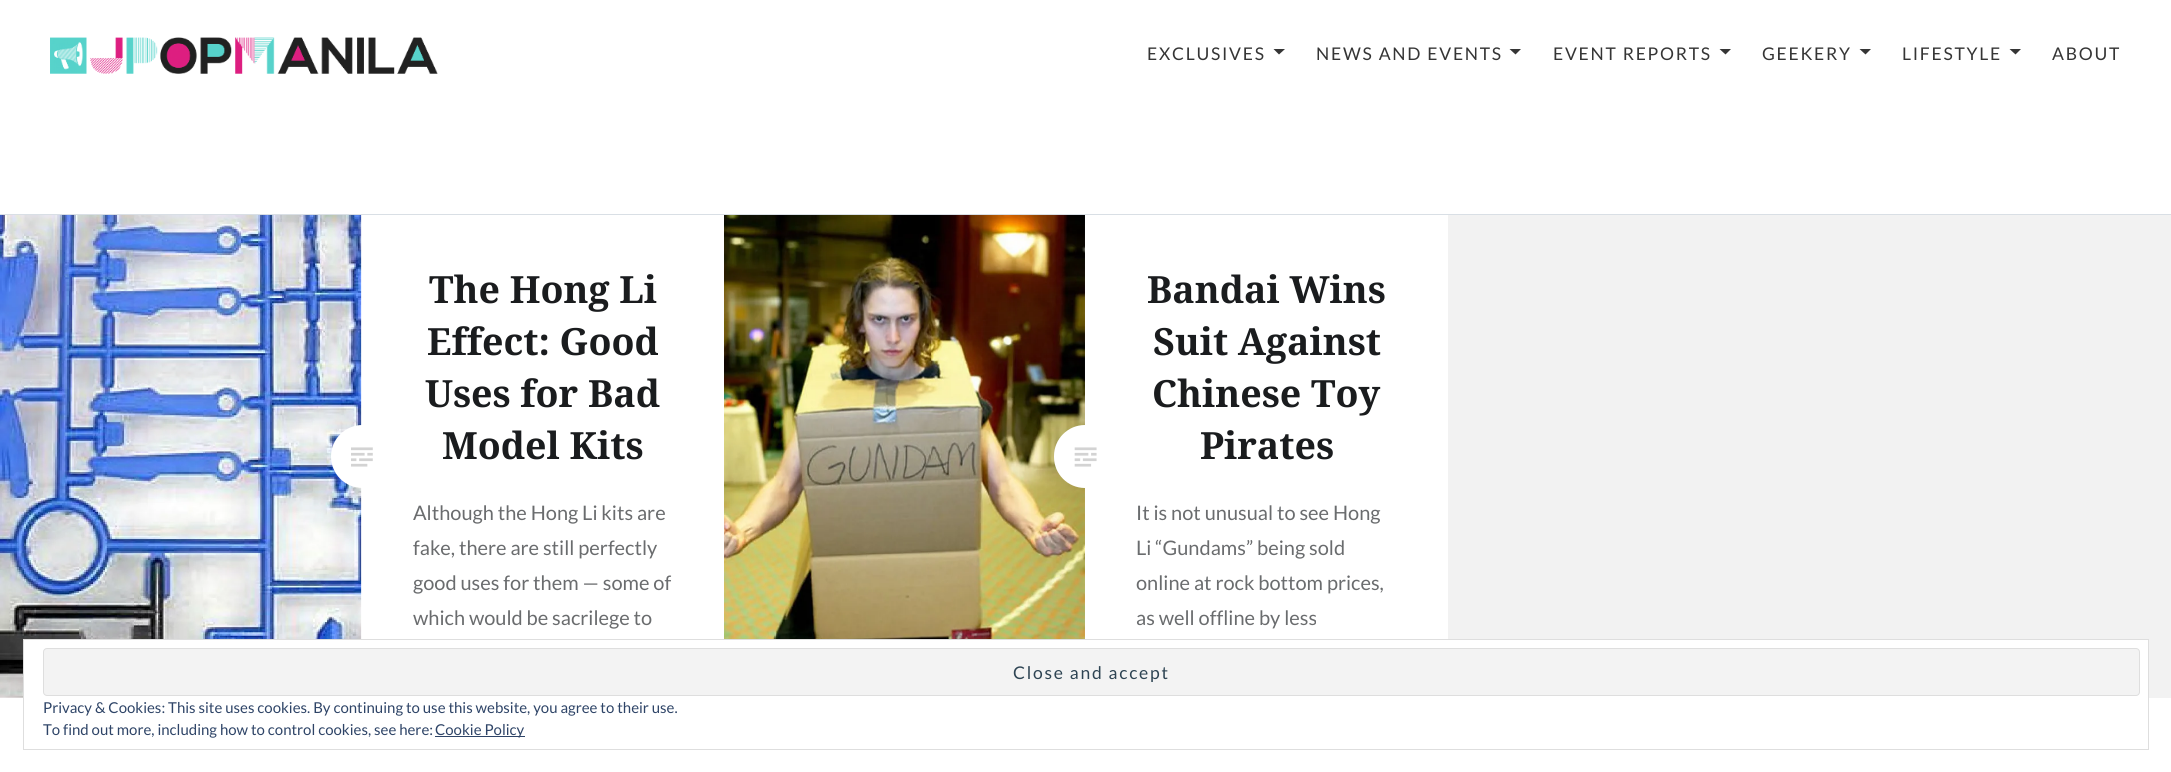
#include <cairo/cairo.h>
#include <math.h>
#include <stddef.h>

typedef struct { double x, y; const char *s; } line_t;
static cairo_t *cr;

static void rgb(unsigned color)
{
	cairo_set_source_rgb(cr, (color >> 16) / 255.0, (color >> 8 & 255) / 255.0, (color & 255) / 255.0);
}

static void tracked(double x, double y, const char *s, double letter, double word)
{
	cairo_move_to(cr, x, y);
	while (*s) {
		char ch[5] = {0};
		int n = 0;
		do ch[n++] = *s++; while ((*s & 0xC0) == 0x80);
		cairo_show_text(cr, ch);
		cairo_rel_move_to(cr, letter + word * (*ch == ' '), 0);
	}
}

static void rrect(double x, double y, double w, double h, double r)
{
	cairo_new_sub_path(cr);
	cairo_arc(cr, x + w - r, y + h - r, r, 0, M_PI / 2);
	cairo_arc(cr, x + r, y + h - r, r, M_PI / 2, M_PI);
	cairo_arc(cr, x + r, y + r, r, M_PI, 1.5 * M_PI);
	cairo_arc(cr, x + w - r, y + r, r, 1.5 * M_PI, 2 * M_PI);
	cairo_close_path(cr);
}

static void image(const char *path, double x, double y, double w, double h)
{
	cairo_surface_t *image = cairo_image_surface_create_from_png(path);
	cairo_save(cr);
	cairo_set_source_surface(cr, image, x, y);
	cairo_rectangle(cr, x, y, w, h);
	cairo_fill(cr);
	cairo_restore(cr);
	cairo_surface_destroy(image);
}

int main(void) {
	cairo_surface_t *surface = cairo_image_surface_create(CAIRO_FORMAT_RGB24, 2171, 772);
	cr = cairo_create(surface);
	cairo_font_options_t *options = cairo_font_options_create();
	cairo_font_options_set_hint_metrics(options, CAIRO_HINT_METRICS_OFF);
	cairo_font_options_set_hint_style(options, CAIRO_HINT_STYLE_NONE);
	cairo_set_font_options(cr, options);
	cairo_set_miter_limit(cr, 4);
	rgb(0xffffff);
	cairo_paint(cr);
	image("img/1.png", 50, 37, 388, 37);
	rgb(0x353535);
	cairo_new_path(cr);
	cairo_move_to(cr, 1273.5, 49);
	cairo_line_to(cr, 1285, 49);
	cairo_line_to(cr, 1279, 54.5);
	cairo_close_path(cr);
	cairo_fill(cr);
	cairo_new_path(cr);
	cairo_move_to(cr, 1509.5, 49);
	cairo_line_to(cr, 1521, 49);
	cairo_line_to(cr, 1515.5, 54.5);
	cairo_close_path(cr);
	cairo_fill(cr);
	cairo_new_path(cr);
	cairo_move_to(cr, 1719.5, 49);
	cairo_line_to(cr, 1731, 49);
	cairo_line_to(cr, 1725.5, 54.5);
	cairo_close_path(cr);
	cairo_fill(cr);
	cairo_new_path(cr);
	cairo_move_to(cr, 1859.5, 49);
	cairo_line_to(cr, 1871, 49);
	cairo_line_to(cr, 1865.5, 54.5);
	cairo_close_path(cr);
	cairo_fill(cr);
	cairo_new_path(cr);
	cairo_move_to(cr, 2009.5, 49);
	cairo_line_to(cr, 2021, 49);
	cairo_line_to(cr, 2015.5, 54.5);
	cairo_close_path(cr);
	cairo_fill(cr);
	rgb(0xf2f2f2);
	cairo_rectangle(cr, 1448, 215, 723, 483);
	cairo_fill(cr);
	rgb(0xd9dfe5);
	cairo_rectangle(cr, 0, 214, 2171, 1);
	cairo_fill(cr);
	image("img/2.png", 0, 215, 362, 483);
	rgb(0xffffff);
	cairo_arc(cr, 362.5, 456.5, 31.5, 0, 2 * M_PI);
	cairo_fill(cr);
	image("img/3.png", 351, 447, 22, 20);
	image("img/4.png", 724, 215, 361, 424);
	rrect(1054, 425, 62, 63, 31);
	cairo_fill(cr);
	image("img/5.png", 1074, 447, 23, 20);
	cairo_rectangle(cr, 24, 640, 2124, 58);
	cairo_fill(cr);
	cairo_rectangle(cr, 23.5, 639.5, 2125, 110);
	rgb(0xdedede);
	cairo_set_line_width(cr, 1);
	cairo_stroke(cr);
	rgb(0xf3f3f3);
	rrect(43.5, 648.5, 2096, 47, 3.5);
	cairo_fill_preserve(cr);
	rgb(0xdedede);
	cairo_stroke(cr);
	rgb(0x2e4467);
	cairo_rectangle(cr, 435, 736, 90, 1);
	cairo_fill(cr);
	cairo_select_font_face(cr, "Lato", CAIRO_FONT_SLANT_NORMAL, CAIRO_FONT_WEIGHT_NORMAL);
	cairo_set_font_size(cr, 17.5);
	rgb(0x353535);
	{
		static const line_t items[] = {
			{1147, 60, "EXCLUSIVES"},
			{1316, 60, "NEWS AND EVENTS"},
			{1553, 60, "EVENT REPORTS"},
			{1762, 60, "GEEKERY"},
			{1902, 60, "LIFESTYLE"},
			{2052, 60, "ABOUT"},
		};
		for (size_t i = 0; i < sizeof items / sizeof *items; i++) {
			tracked(items[i].x, items[i].y, items[i].s, 1.75, 0);
		}
	}
	cairo_select_font_face(cr, "Noto Serif", CAIRO_FONT_SLANT_NORMAL, CAIRO_FONT_WEIGHT_BOLD);
	cairo_set_font_size(cr, 37.5);
	rgb(0x1a1c1e);
	{
		static const line_t items[] = {
			{429, 303, "The Hong Li"},
			{427, 355, "Effect: Good"},
			{425, 407, "Uses for Bad"},
			{442, 459, "Model Kits"},
		};
		for (size_t i = 0; i < sizeof items / sizeof *items; i++) {
			cairo_move_to(cr, items[i].x, items[i].y);
			cairo_show_text(cr, items[i].s);
		}
	}
	cairo_select_font_face(cr, "Lato", CAIRO_FONT_SLANT_NORMAL, CAIRO_FONT_WEIGHT_NORMAL);
	cairo_set_font_size(cr, 20);
	rgb(0x6a6c6e);
	{
		static const line_t items[] = {
			{413, 520, "Although the Hong Li kits are"},
			{413, 555, "fake, there are still perfectly"},
			{413, 590, "good uses for them — some of"},
			{413, 625, "which would be sacrilege to"},
		};
		for (size_t i = 0; i < sizeof items / sizeof *items; i++) {
			cairo_move_to(cr, items[i].x, items[i].y);
			cairo_show_text(cr, items[i].s);
		}
	}
	cairo_select_font_face(cr, "Noto Serif", CAIRO_FONT_SLANT_NORMAL, CAIRO_FONT_WEIGHT_BOLD);
	cairo_set_font_size(cr, 37.5);
	rgb(0x1a1c1e);
	{
		static const line_t items[] = {
			{1147, 303, "Bandai Wins"},
			{1153, 355, "Suit Against"},
			{1152, 407, "Chinese Toy"},
			{1200, 459, "Pirates"},
		};
		for (size_t i = 0; i < sizeof items / sizeof *items; i++) {
			cairo_move_to(cr, items[i].x, items[i].y);
			cairo_show_text(cr, items[i].s);
		}
	}
	cairo_select_font_face(cr, "Lato", CAIRO_FONT_SLANT_NORMAL, CAIRO_FONT_WEIGHT_NORMAL);
	cairo_set_font_size(cr, 20);
	rgb(0x6a6c6e);
	{
		static const line_t items[] = {
			{1136, 520, "It is not unusual to see Hong"},
			{1136, 555, "Li “Gundams” being sold"},
			{1136, 590, "online at rock bottom prices,"},
			{1136, 625, "as well offline by less"},
		};
		for (size_t i = 0; i < sizeof items / sizeof *items; i++) {
			cairo_move_to(cr, items[i].x, items[i].y);
			cairo_show_text(cr, items[i].s);
		}
	}
	cairo_set_font_size(cr, 17.5);
	rgb(0x2e4453);
	tracked(1013, 679, "Close and accept", 1.75, 0);
	cairo_set_font_size(cr, 15);
	rgb(0x2e4467);
	{
		static const line_t items[] = {
			{43, 713, "Privacy & Cookies: This site uses cookies. By continuing to use this website, you agree to their use."},
			{43, 735, "To find out more, including how to control cookies, see here:"},
			{435, 735, "Cookie Policy"},
		};
		for (size_t i = 0; i < sizeof items / sizeof *items; i++) {
			cairo_move_to(cr, items[i].x, items[i].y);
			cairo_show_text(cr, items[i].s);
		}
	}
	cairo_surface_write_to_png(surface, "page.png");
	cairo_font_options_destroy(options);
	cairo_destroy(cr);
	cairo_surface_destroy(surface);
	return 0;
}
